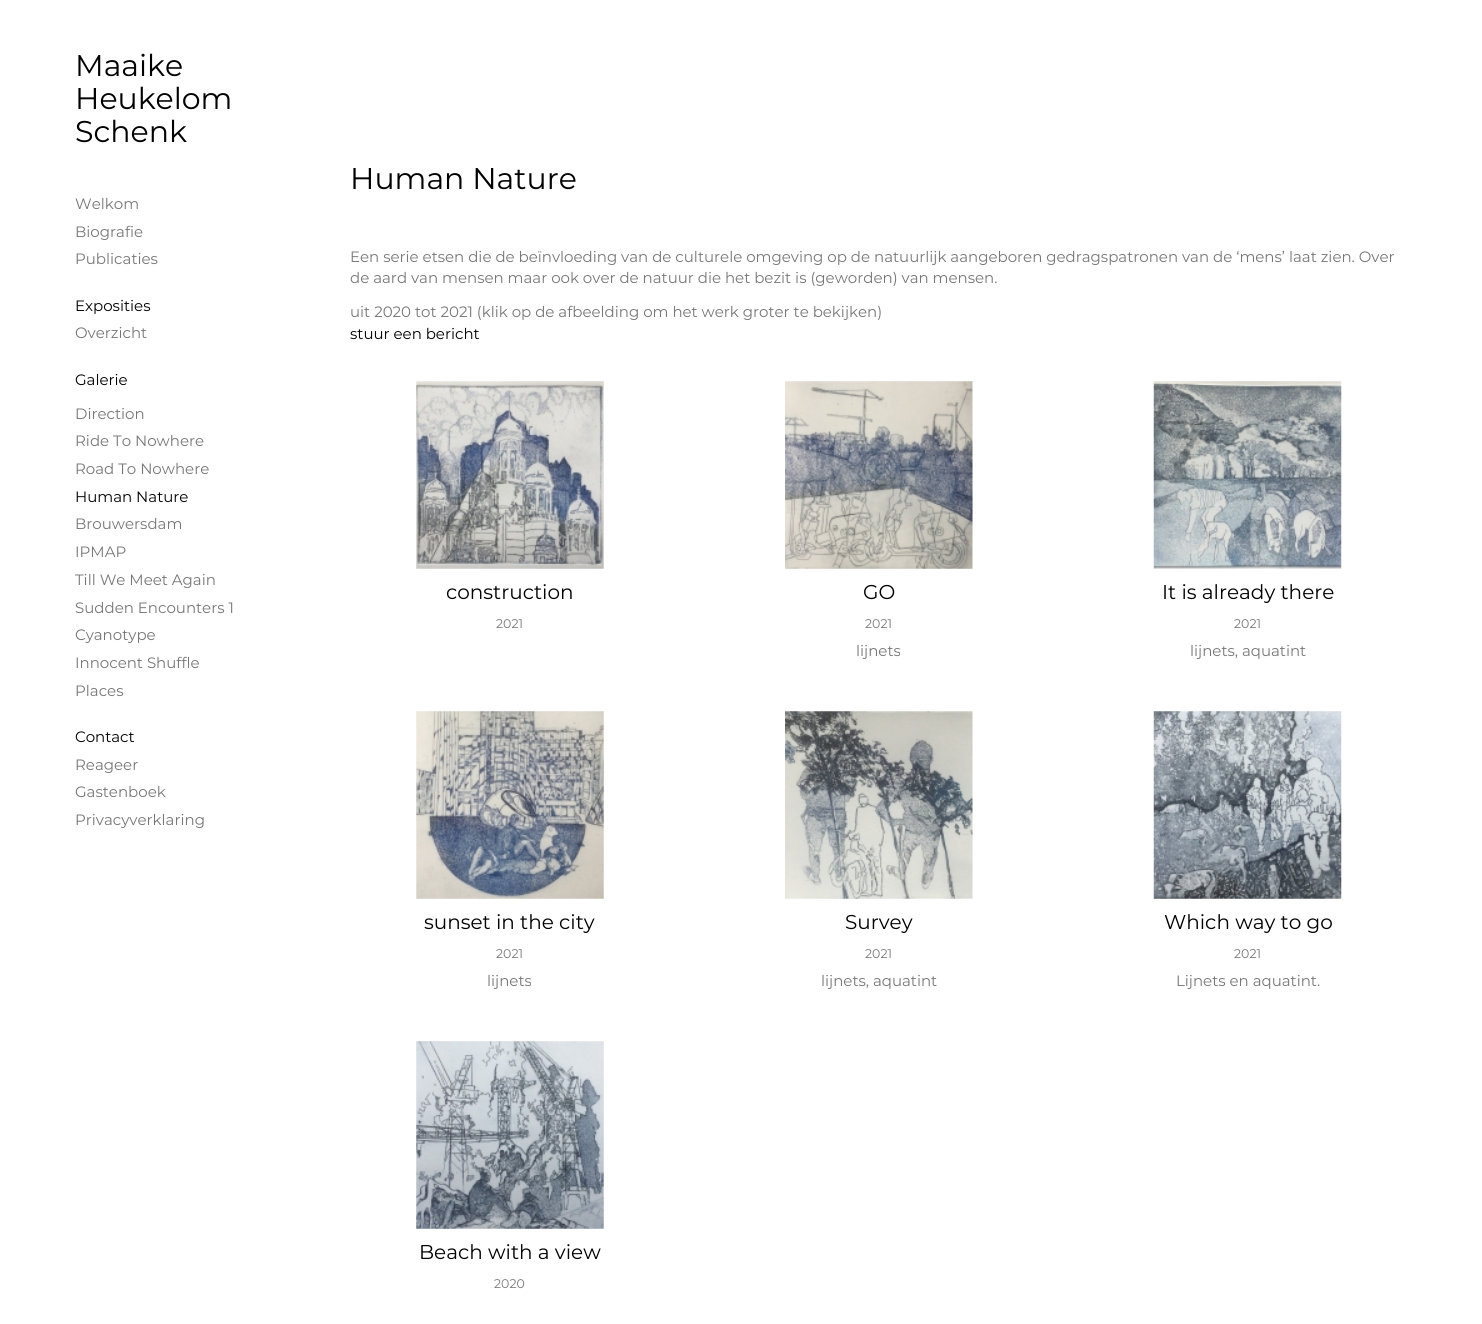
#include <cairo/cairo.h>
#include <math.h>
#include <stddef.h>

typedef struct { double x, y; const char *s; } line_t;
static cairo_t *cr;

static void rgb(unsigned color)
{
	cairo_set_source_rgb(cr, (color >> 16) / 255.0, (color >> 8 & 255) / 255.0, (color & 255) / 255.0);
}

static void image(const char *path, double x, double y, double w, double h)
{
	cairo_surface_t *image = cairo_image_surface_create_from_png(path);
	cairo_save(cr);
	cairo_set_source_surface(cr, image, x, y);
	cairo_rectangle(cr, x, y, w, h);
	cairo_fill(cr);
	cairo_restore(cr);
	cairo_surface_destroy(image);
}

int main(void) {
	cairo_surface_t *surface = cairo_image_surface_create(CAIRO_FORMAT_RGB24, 1482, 1324);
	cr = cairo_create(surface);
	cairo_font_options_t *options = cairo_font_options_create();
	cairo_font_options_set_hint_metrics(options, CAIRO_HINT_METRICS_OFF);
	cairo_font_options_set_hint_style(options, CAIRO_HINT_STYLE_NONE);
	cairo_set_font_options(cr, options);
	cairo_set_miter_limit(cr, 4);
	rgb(0xffffff);
	cairo_paint(cr);
	image("img/1.png", 416, 381, 188, 188);
	image("img/2.png", 785, 381, 188, 188);
	image("img/3.png", 1153, 381, 189, 188);
	image("img/4.png", 416, 711, 188, 188);
	image("img/5.png", 785, 711, 188, 188);
	image("img/6.png", 1153, 711, 189, 188);
	image("img/7.png", 416, 1041, 188, 188);
	cairo_select_font_face(cr, "Montserrat Thin", CAIRO_FONT_SLANT_NORMAL, CAIRO_FONT_WEIGHT_NORMAL);
	cairo_set_font_size(cr, 30);
	rgb(0x000000);
	{
		static const line_t items[] = {
			{75, 76, "Maaike"},
			{75, 109, "Heukelom"},
			{75, 142, "Schenk"},
		};
		for (size_t i = 0; i < sizeof items / sizeof *items; i++) {
			cairo_move_to(cr, items[i].x, items[i].y);
			cairo_show_text(cr, items[i].s);
		}
	}
	cairo_set_font_size(cr, 15);
	rgb(0x777777);
	{
		static const line_t items[] = {
			{75, 209, "Welkom"},
			{75, 237, "Biografie"},
			{75, 264, "Publicaties"},
		};
		for (size_t i = 0; i < sizeof items / sizeof *items; i++) {
			cairo_move_to(cr, items[i].x, items[i].y);
			cairo_show_text(cr, items[i].s);
		}
	}
	rgb(0x000000);
	cairo_move_to(cr, 75, 311);
	cairo_show_text(cr, "Exposities");
	rgb(0x777777);
	cairo_move_to(cr, 75, 338);
	cairo_show_text(cr, "Overzicht");
	rgb(0x000000);
	cairo_move_to(cr, 75, 385);
	cairo_show_text(cr, "Galerie");
	rgb(0x777777);
	{
		static const line_t items[] = {
			{75, 419, "Direction"},
			{75, 446, "Ride To Nowhere"},
			{75, 474, "Road To Nowhere"},
		};
		for (size_t i = 0; i < sizeof items / sizeof *items; i++) {
			cairo_move_to(cr, items[i].x, items[i].y);
			cairo_show_text(cr, items[i].s);
		}
	}
	rgb(0x000000);
	cairo_move_to(cr, 75, 502);
	cairo_show_text(cr, "Human Nature");
	rgb(0x777777);
	{
		static const line_t items[] = {
			{75, 529, "Brouwersdam"},
			{75, 557, "IPMAP"},
			{75, 585, "Till We Meet Again"},
			{75, 613, "Sudden Encounters 1"},
			{75, 640, "Cyanotype"},
			{75, 668, "Innocent Shuffle"},
			{75, 696, "Places"},
		};
		for (size_t i = 0; i < sizeof items / sizeof *items; i++) {
			cairo_move_to(cr, items[i].x, items[i].y);
			cairo_show_text(cr, items[i].s);
		}
	}
	rgb(0x000000);
	cairo_move_to(cr, 75, 742);
	cairo_show_text(cr, "Contact");
	rgb(0x777777);
	{
		static const line_t items[] = {
			{75, 770, "Reageer"},
			{75, 797, "Gastenboek"},
			{75, 825, "Privacyverklaring"},
		};
		for (size_t i = 0; i < sizeof items / sizeof *items; i++) {
			cairo_move_to(cr, items[i].x, items[i].y);
			cairo_show_text(cr, items[i].s);
		}
	}
	cairo_set_font_size(cr, 30);
	rgb(0x000000);
	cairo_move_to(cr, 350, 189);
	cairo_show_text(cr, "Human Nature");
	cairo_set_font_size(cr, 15);
	rgb(0x777777);
	{
		static const line_t items[] = {
			{350, 262, "Een serie etsen die de beïnvloeding van de culturele omgeving op de natuurlijk aangeboren gedragspatronen van de ‘mens’ laat zien. Over"},
			{350, 283, "de aard van mensen maar ook over de natuur die het bezit is (geworden) van mensen."},
			{350, 317, "uit 2020 tot 2021 (klik op de afbeelding om het werk groter te bekijken)"},
		};
		for (size_t i = 0; i < sizeof items / sizeof *items; i++) {
			cairo_move_to(cr, items[i].x, items[i].y);
			cairo_show_text(cr, items[i].s);
		}
	}
	rgb(0x000000);
	cairo_move_to(cr, 350, 339);
	cairo_show_text(cr, "stuur een bericht");
	cairo_set_font_size(cr, 20);
	cairo_move_to(cr, 446, 599);
	cairo_show_text(cr, "construction");
	cairo_set_font_size(cr, 12.5);
	rgb(0x777777);
	cairo_move_to(cr, 496, 628);
	cairo_show_text(cr, "2021");
	cairo_set_font_size(cr, 20);
	rgb(0x000000);
	cairo_move_to(cr, 863, 599);
	cairo_show_text(cr, "GO");
	cairo_set_font_size(cr, 12.5);
	rgb(0x777777);
	cairo_move_to(cr, 865, 628);
	cairo_show_text(cr, "2021");
	cairo_set_font_size(cr, 15);
	cairo_move_to(cr, 856, 656);
	cairo_show_text(cr, "lijnets");
	cairo_set_font_size(cr, 20);
	rgb(0x000000);
	cairo_move_to(cr, 1162, 599);
	cairo_show_text(cr, "It is already there");
	cairo_set_font_size(cr, 12.5);
	rgb(0x777777);
	cairo_move_to(cr, 1234, 628);
	cairo_show_text(cr, "2021");
	cairo_set_font_size(cr, 15);
	cairo_move_to(cr, 1190, 656);
	cairo_show_text(cr, "lijnets, aquatint");
	cairo_set_font_size(cr, 20);
	rgb(0x000000);
	cairo_move_to(cr, 424, 929);
	cairo_show_text(cr, "sunset in the city");
	cairo_set_font_size(cr, 12.5);
	rgb(0x777777);
	cairo_move_to(cr, 496, 958);
	cairo_show_text(cr, "2021");
	cairo_set_font_size(cr, 15);
	cairo_move_to(cr, 487, 986);
	cairo_show_text(cr, "lijnets");
	cairo_set_font_size(cr, 20);
	rgb(0x000000);
	cairo_move_to(cr, 845, 929);
	cairo_show_text(cr, "Survey");
	cairo_set_font_size(cr, 12.5);
	rgb(0x777777);
	cairo_move_to(cr, 865, 958);
	cairo_show_text(cr, "2021");
	cairo_set_font_size(cr, 15);
	cairo_move_to(cr, 821, 986);
	cairo_show_text(cr, "lijnets, aquatint");
	cairo_set_font_size(cr, 20);
	rgb(0x000000);
	cairo_move_to(cr, 1164, 929);
	cairo_show_text(cr, "Which way to go");
	cairo_set_font_size(cr, 12.5);
	rgb(0x777777);
	cairo_move_to(cr, 1234, 958);
	cairo_show_text(cr, "2021");
	cairo_set_font_size(cr, 15);
	cairo_move_to(cr, 1176, 986);
	cairo_show_text(cr, "Lijnets en aquatint.");
	cairo_set_font_size(cr, 20);
	rgb(0x000000);
	cairo_move_to(cr, 419, 1259);
	cairo_show_text(cr, "Beach with a view");
	cairo_set_font_size(cr, 12.5);
	rgb(0x777777);
	cairo_move_to(cr, 494, 1288);
	cairo_show_text(cr, "2020");
	cairo_surface_write_to_png(surface, "page.png");
	cairo_font_options_destroy(options);
	cairo_destroy(cr);
	cairo_surface_destroy(surface);
	return 0;
}
